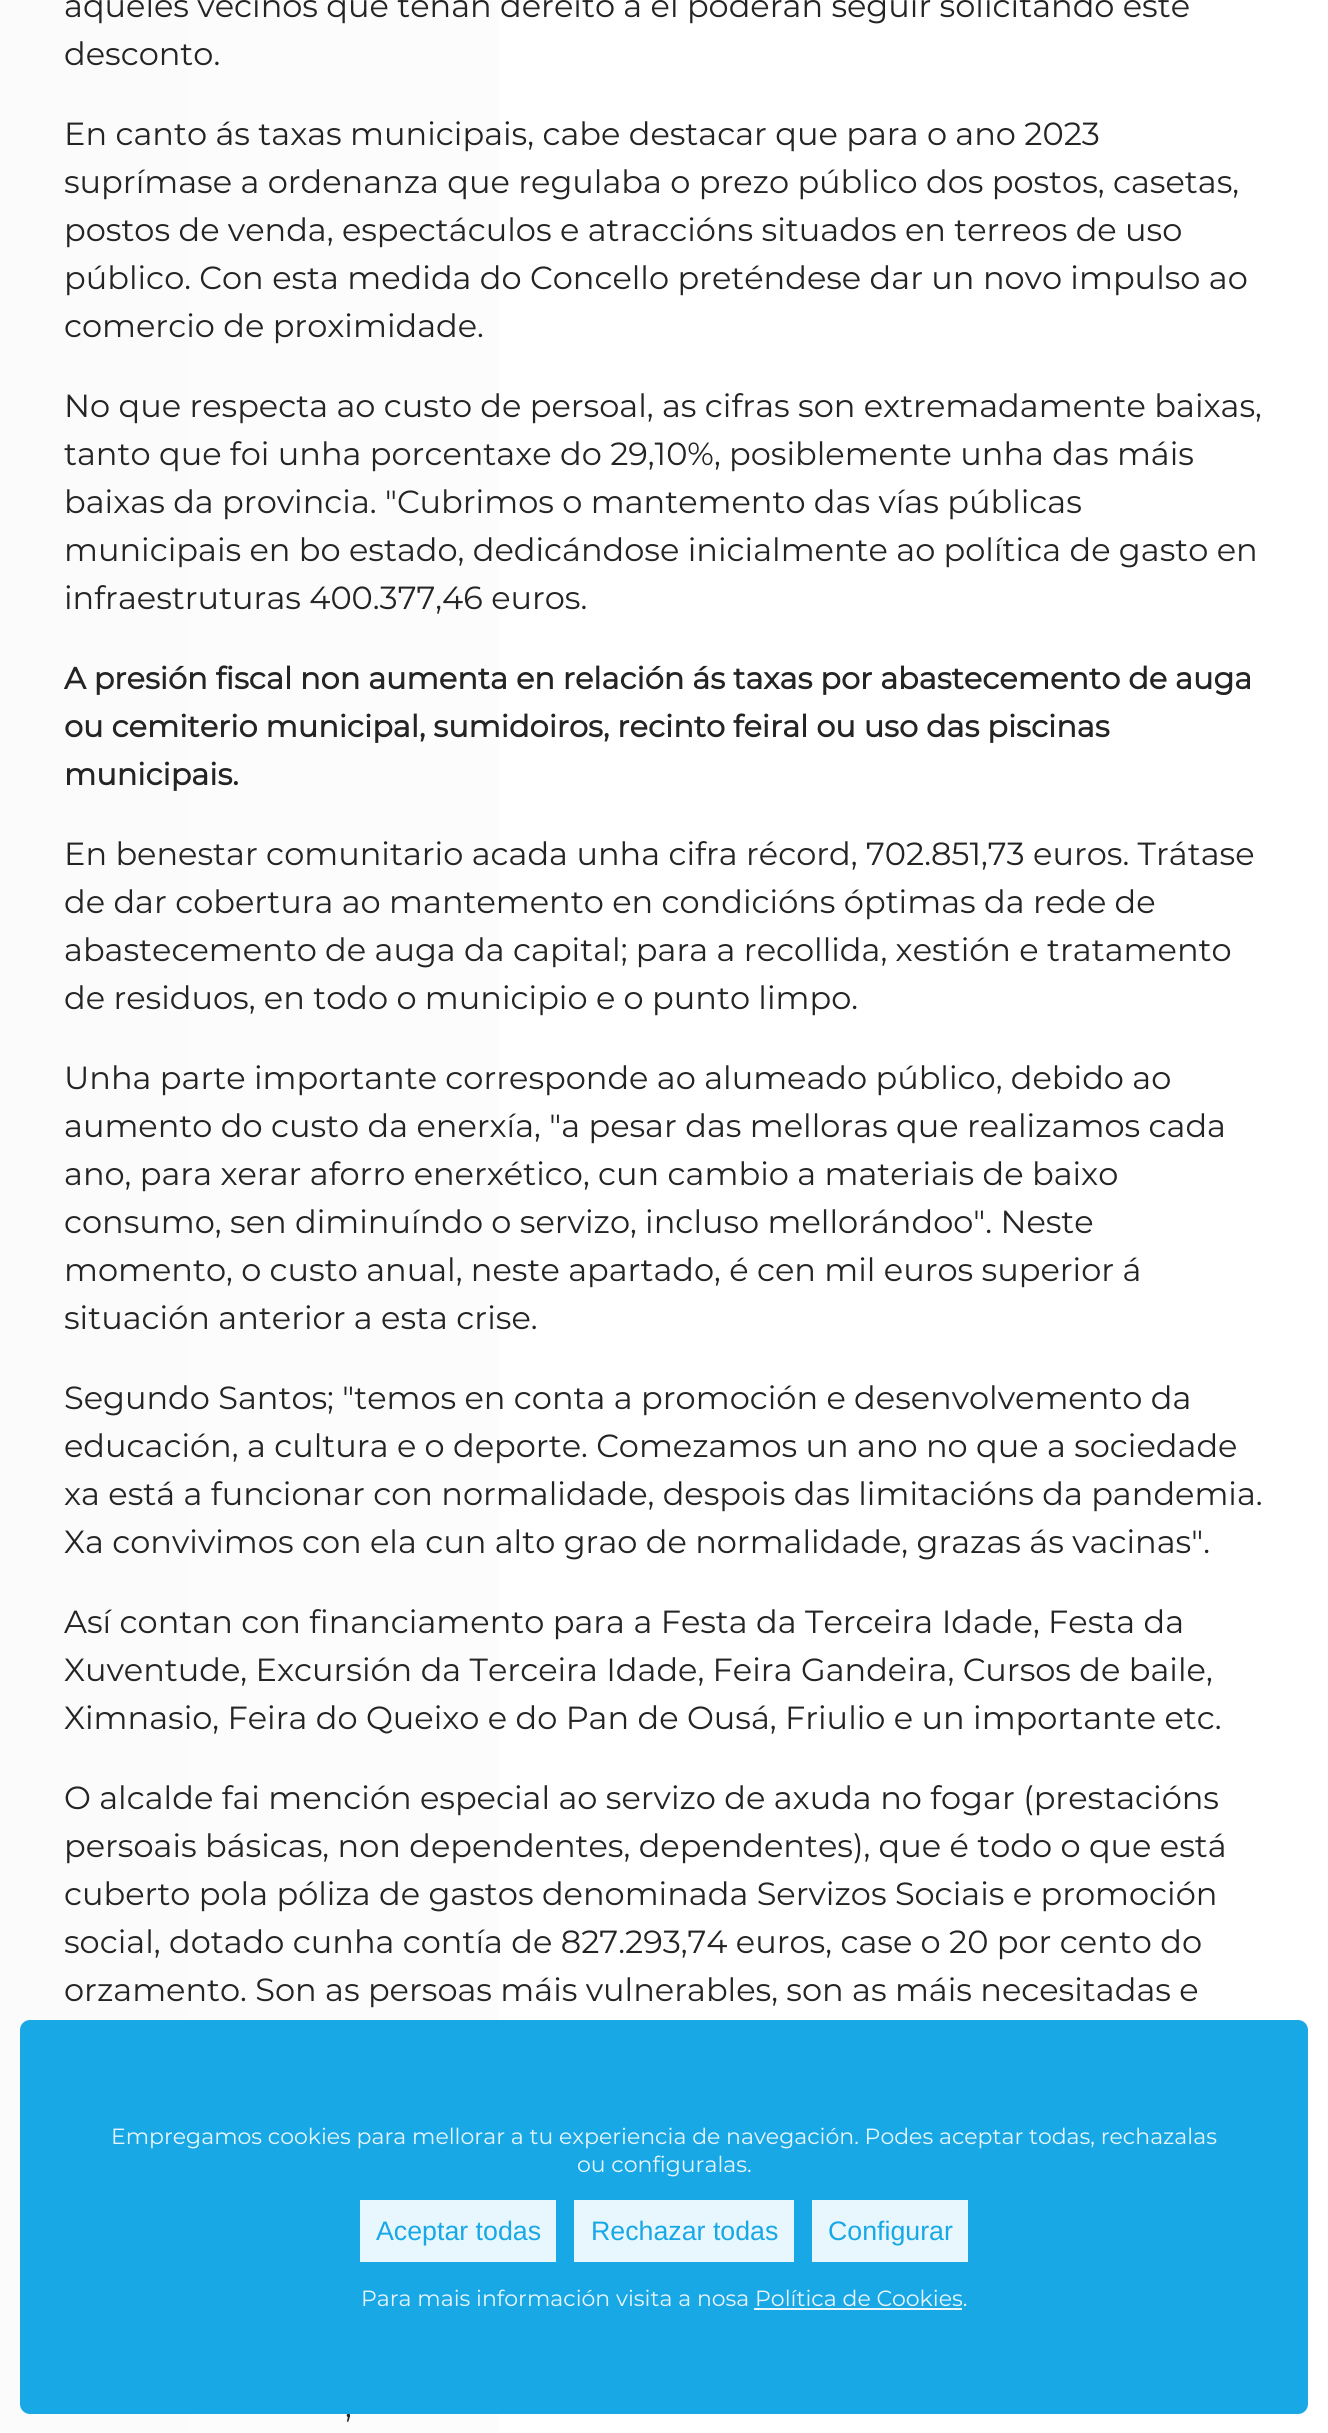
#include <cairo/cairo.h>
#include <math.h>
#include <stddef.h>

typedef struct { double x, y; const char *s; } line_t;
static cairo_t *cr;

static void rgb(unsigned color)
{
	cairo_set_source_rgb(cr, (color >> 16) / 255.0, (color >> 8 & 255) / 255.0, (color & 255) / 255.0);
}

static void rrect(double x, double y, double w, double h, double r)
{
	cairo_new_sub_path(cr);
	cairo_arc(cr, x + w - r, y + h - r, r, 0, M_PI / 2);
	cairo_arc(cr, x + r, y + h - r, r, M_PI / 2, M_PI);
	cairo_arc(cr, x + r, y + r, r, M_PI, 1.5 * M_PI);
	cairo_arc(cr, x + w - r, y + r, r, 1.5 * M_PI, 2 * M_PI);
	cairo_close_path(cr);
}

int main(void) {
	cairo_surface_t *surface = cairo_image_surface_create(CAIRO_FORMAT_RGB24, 1328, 2433);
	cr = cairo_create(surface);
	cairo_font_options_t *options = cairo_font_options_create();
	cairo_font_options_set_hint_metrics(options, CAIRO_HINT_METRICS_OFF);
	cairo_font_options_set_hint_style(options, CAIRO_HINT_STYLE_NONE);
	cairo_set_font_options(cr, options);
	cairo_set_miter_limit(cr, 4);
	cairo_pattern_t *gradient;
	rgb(0xffffff);
	cairo_paint(cr);
	gradient = cairo_pattern_create_linear(0, 1345, 1328, 1345);
	cairo_pattern_add_color_stop_rgba(gradient, 0, 0.984, 0.984, 0.984, 1);
	cairo_pattern_add_color_stop_rgba(gradient, 0.5, 0.992, 0.992, 0.992, 1);
	cairo_pattern_add_color_stop_rgba(gradient, 1, 1, 1, 1, 1);
	cairo_set_source(cr, gradient);
	cairo_pattern_destroy(gradient);
	cairo_rectangle(cr, 0, 0, 498, 2433);
	cairo_fill(cr);
	cairo_select_font_face(cr, "Montserrat Thin", CAIRO_FONT_SLANT_NORMAL, CAIRO_FONT_WEIGHT_NORMAL);
	cairo_set_font_size(cr, 32);
	rgb(0x242424);
	{
		static const line_t items[] = {
			{64, 17, "aqueles veciños que teñan dereito a el poderán seguir solicitando este"},
			{64, 65, "desconto."},
			{64, 145, "En canto ás taxas municipais, cabe destacar que para o ano 2023"},
			{64, 193, "suprímase a ordenanza que regulaba o prezo público dos postos, casetas,"},
			{64, 241, "postos de venda, espectáculos e atraccións situados en terreos de uso"},
			{64, 289, "público. Con esta medida do Concello preténdese dar un novo impulso ao"},
			{64, 337, "comercio de proximidade."},
			{64, 417, "No que respecta ao custo de persoal, as cifras son extremadamente baixas,"},
			{64, 465, "tanto que foi unha porcentaxe do 29,10%, posiblemente unha das máis"},
			{64, 513, "baixas da provincia. \"Cubrimos o mantemento das vías públicas"},
			{64, 561, "municipais en bo estado, dedicándose inicialmente ao política de gasto en"},
			{64, 609, "infraestruturas 400.377,46 euros."},
		};
		for (size_t i = 0; i < sizeof items / sizeof *items; i++) {
			cairo_move_to(cr, items[i].x, items[i].y);
			cairo_show_text(cr, items[i].s);
		}
	}
	cairo_select_font_face(cr, "Montserrat", CAIRO_FONT_SLANT_NORMAL, CAIRO_FONT_WEIGHT_BOLD);
	cairo_set_font_size(cr, 30.4);
	{
		static const line_t items[] = {
			{64, 689, "A presión fiscal non aumenta en relación ás taxas por abastecemento de auga"},
			{64, 737, "ou cemiterio municipal, sumidoiros, recinto feiral ou uso das piscinas"},
			{64, 785, "municipais."},
		};
		for (size_t i = 0; i < sizeof items / sizeof *items; i++) {
			cairo_move_to(cr, items[i].x, items[i].y);
			cairo_show_text(cr, items[i].s);
		}
	}
	cairo_select_font_face(cr, "Montserrat Thin", CAIRO_FONT_SLANT_NORMAL, CAIRO_FONT_WEIGHT_NORMAL);
	cairo_set_font_size(cr, 32);
	{
		static const line_t items[] = {
			{64, 865, "En benestar comunitario acada unha cifra récord, 702.851,73 euros. Trátase"},
			{64, 913, "de dar cobertura ao mantemento en condicións óptimas da rede de"},
			{64, 961, "abastecemento de auga da capital; para a recollida, xestión e tratamento"},
			{64, 1009, "de residuos, en todo o municipio e o punto limpo."},
			{64, 1089, "Unha parte importante corresponde ao alumeado público, debido ao"},
			{64, 1137, "aumento do custo da enerxía, \"a pesar das melloras que realizamos cada"},
			{64, 1185, "ano, para xerar aforro enerxético, cun cambio a materiais de baixo"},
			{64, 1233, "consumo, sen diminuíndo o servizo, incluso mellorándoo\". Neste"},
			{64, 1281, "momento, o custo anual, neste apartado, é cen mil euros superior á"},
			{64, 1329, "situación anterior a esta crise."},
			{64, 1409, "Segundo Santos; \"temos en conta a promoción e desenvolvemento da"},
			{64, 1457, "educación, a cultura e o deporte. Comezamos un ano no que a sociedade"},
			{64, 1505, "xa está a funcionar con normalidade, despois das limitacións da pandemia."},
			{64, 1553, "Xa convivimos con ela cun alto grao de normalidade, grazas ás vacinas\"."},
			{64, 1633, "Así contan con financiamento para a Festa da Terceira Idade, Festa da"},
			{64, 1681, "Xuventude, Excursión da Terceira Idade, Feira Gandeira, Cursos de baile,"},
			{64, 1729, "Ximnasio, Feira do Queixo e do Pan de Ousá, Friulio e un importante etc."},
			{64, 1809, "O alcalde fai mención especial ao servizo de axuda no fogar (prestacións"},
			{64, 1857, "persoais básicas, non dependentes, dependentes), que é todo o que está"},
			{64, 1905, "cuberto pola póliza de gastos denominada Servizos Sociais e promoción"},
			{64, 1953, "social, dotado cunha contía de 827.293,74 euros, case o 20 por cento do"},
			{64, 2001, "orzamento. Son as persoas máis vulnerables, son as máis necesitadas e"},
			{345, 2417, ","},
		};
		for (size_t i = 0; i < sizeof items / sizeof *items; i++) {
			cairo_move_to(cr, items[i].x, items[i].y);
			cairo_show_text(cr, items[i].s);
		}
	}
	cairo_set_source_rgba(cr, 0, 0.624, 0.89, 0.9);
	rrect(20, 2020, 1288, 394, 10);
	cairo_fill(cr);
	cairo_set_font_size(cr, 22);
	rgb(0xe8f6fc);
	cairo_move_to(cr, 111, 2144);
	cairo_show_text(cr, "Empregamos cookies para mellorar a tu experiencia de navegación. Podes aceptar todas, rechazalas");
	cairo_move_to(cr, 577, 2172);
	cairo_show_text(cr, "ou configuralas.");
	cairo_set_source_rgba(cr, 1, 1, 1, 0.9);
	cairo_rectangle(cr, 360, 2200, 196, 62);
	cairo_fill(cr);
	cairo_select_font_face(cr, "Liberation Sans", CAIRO_FONT_SLANT_NORMAL, CAIRO_FONT_WEIGHT_NORMAL);
	cairo_set_font_size(cr, 26.75);
	rgb(0x17a8e6);
	cairo_move_to(cr, 376, 2240);
	cairo_show_text(cr, "Aceptar todas");
	cairo_set_source_rgba(cr, 1, 1, 1, 0.9);
	cairo_rectangle(cr, 574, 2200, 220, 62);
	cairo_fill(cr);
	rgb(0x17a8e6);
	cairo_move_to(cr, 591, 2240);
	cairo_show_text(cr, "Rechazar todas");
	cairo_set_source_rgba(cr, 1, 1, 1, 0.9);
	cairo_rectangle(cr, 812, 2200, 156, 62);
	cairo_fill(cr);
	rgb(0x17a8e6);
	cairo_move_to(cr, 828, 2240);
	cairo_show_text(cr, "Configurar");
	cairo_select_font_face(cr, "Montserrat Thin", CAIRO_FONT_SLANT_NORMAL, CAIRO_FONT_WEIGHT_NORMAL);
	cairo_set_font_size(cr, 22);
	rgb(0xe8f6fc);
	cairo_move_to(cr, 361, 2306);
	cairo_show_text(cr, "Para mais información visita a nosa Política de Cookies.");
	cairo_set_source_rgba(cr, 1, 1, 1, 0.9);
	cairo_rectangle(cr, 754, 2308, 208, 2);
	cairo_fill(cr);
	cairo_surface_write_to_png(surface, "page.png");
	cairo_font_options_destroy(options);
	cairo_destroy(cr);
	cairo_surface_destroy(surface);
	return 0;
}
